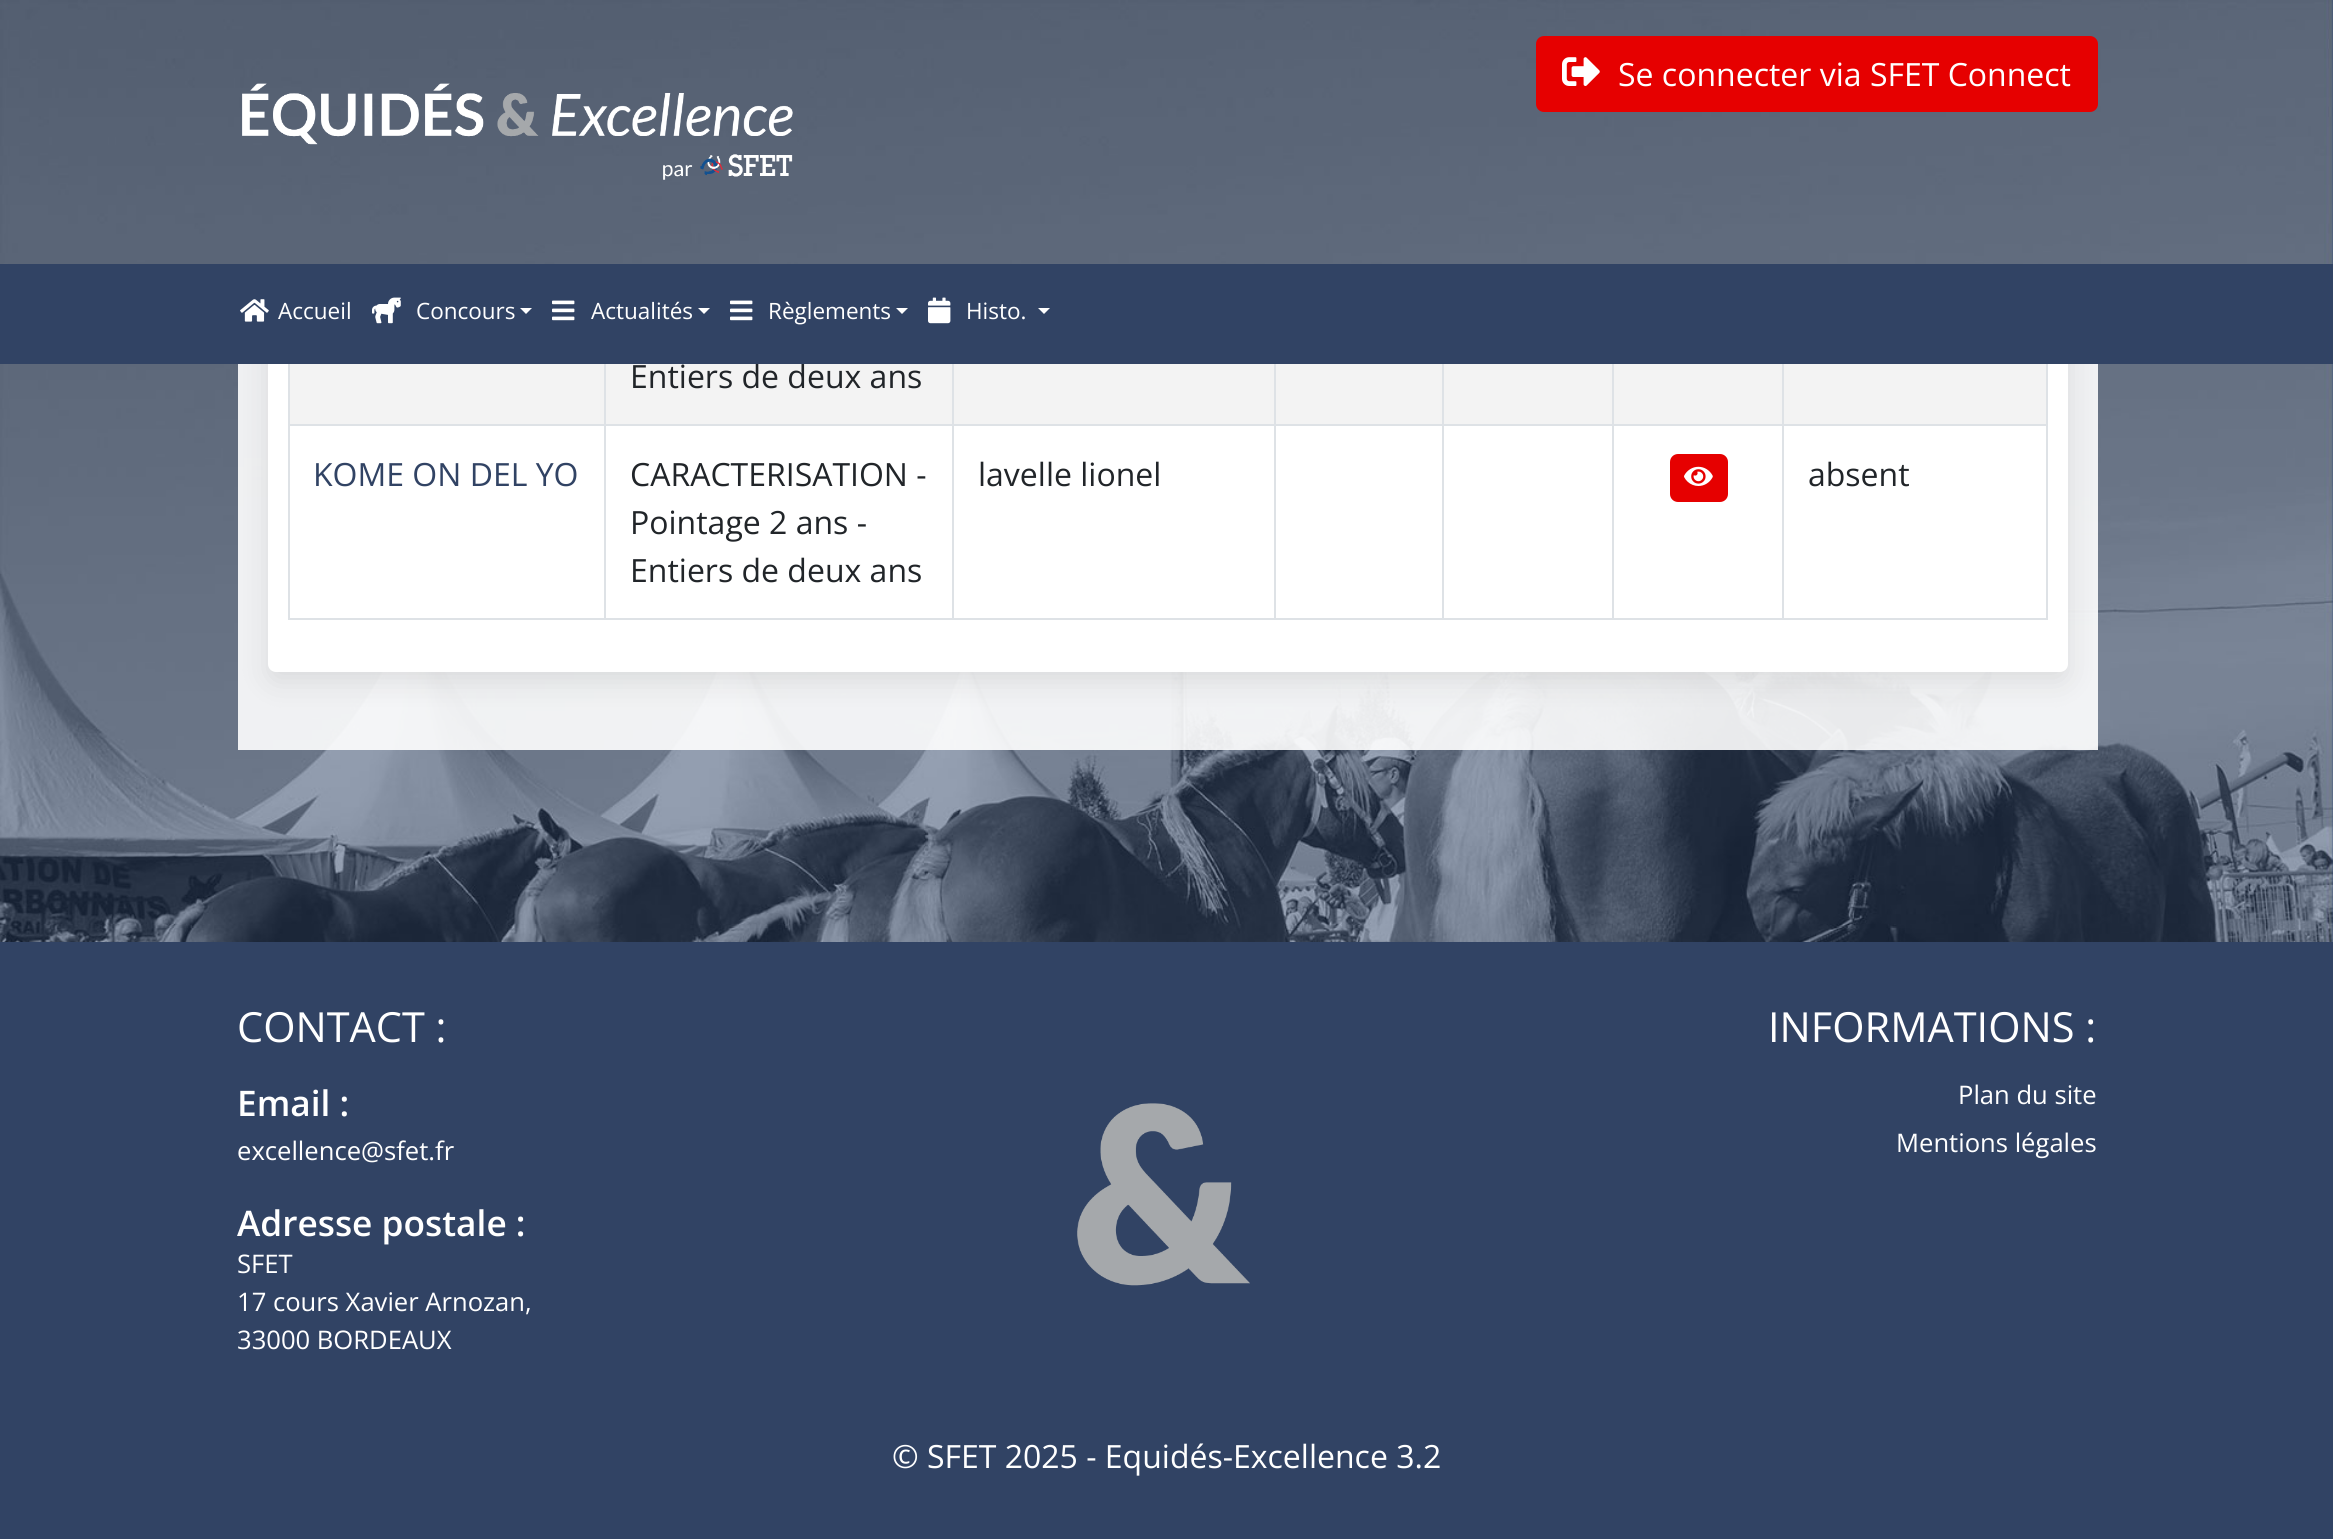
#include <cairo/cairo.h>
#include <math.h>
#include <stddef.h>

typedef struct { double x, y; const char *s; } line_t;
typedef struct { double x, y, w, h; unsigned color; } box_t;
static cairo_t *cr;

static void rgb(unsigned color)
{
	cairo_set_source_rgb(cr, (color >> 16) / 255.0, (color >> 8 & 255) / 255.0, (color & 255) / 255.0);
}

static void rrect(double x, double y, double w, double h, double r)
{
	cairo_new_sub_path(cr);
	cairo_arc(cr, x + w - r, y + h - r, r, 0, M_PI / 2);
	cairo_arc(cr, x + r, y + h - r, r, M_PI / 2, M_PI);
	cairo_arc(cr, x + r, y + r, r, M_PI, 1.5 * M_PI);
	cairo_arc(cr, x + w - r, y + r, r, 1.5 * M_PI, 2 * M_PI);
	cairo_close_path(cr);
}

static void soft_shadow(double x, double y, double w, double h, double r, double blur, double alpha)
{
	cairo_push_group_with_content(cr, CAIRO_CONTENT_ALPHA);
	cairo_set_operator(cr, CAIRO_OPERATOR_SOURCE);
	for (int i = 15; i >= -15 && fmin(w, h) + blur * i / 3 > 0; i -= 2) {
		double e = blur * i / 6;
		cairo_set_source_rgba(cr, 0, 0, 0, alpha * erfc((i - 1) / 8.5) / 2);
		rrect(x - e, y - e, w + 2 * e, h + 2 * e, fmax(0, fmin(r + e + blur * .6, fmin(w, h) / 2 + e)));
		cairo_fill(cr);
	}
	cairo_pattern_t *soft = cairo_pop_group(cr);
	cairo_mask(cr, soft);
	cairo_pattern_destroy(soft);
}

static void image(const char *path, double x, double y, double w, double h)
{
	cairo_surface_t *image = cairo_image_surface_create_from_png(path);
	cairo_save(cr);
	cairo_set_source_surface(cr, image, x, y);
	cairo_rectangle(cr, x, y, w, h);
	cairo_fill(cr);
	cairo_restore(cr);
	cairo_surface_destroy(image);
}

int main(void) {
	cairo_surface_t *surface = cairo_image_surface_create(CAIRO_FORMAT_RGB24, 2333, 1539);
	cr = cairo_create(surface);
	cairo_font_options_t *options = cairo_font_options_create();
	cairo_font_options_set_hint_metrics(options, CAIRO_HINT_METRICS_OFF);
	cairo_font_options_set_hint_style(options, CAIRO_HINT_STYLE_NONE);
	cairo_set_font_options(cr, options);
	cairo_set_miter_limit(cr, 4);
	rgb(0xffffff);
	cairo_paint(cr);
	image("img/1.png", 0, 0, 2333, 942);
	cairo_set_source_rgba(cr, 1, 1, 1, 0.9);
	cairo_rectangle(cr, 238, 364, 1860, 386);
	cairo_fill(cr);
	rgb(0x818181);
	soft_shadow(268, -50, 1800, 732, 8, 14, 0.2);
	rgb(0xffffff);
	rrect(268, -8, 1800, 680, 8);
	cairo_fill(cr);
	image("img/2.png", 238, 0, 1860, 264);
	rgb(0xe60000);
	rrect(1537, 37, 560, 74, 7);
	cairo_fill_preserve(cr);
	cairo_stroke(cr);
	image("img/3.png", 1562, 57, 38, 29);
	image("img/4.png", 242, 83, 551, 97);
	{
		static const box_t items[] = {
			{290, 364, 1756, 60, 0xf3f3f3},
			{1782, 424, 266, 2, 0xdee2e6},
			{2046, 364, 2, 256, 0xdee2e6},
			{1782, 618, 266, 2, 0xdee2e6},
			{1782, 424, 2, 196, 0xdee2e6},
			{1612, 424, 172, 2, 0xdee2e6},
			{1612, 618, 172, 2, 0xdee2e6},
			{1612, 424, 2, 196, 0xdee2e6},
			{1442, 424, 172, 2, 0xdee2e6},
			{1442, 618, 172, 2, 0xdee2e6},
			{1442, 424, 2, 196, 0xdee2e6},
			{1274, 424, 170, 2, 0xdee2e6},
			{1274, 618, 170, 2, 0xdee2e6},
			{1274, 424, 2, 196, 0xdee2e6},
			{952, 424, 324, 2, 0xdee2e6},
			{952, 618, 324, 2, 0xdee2e6},
			{952, 424, 2, 196, 0xdee2e6},
			{604, 424, 350, 2, 0xdee2e6},
			{604, 618, 350, 2, 0xdee2e6},
			{604, 424, 2, 196, 0xdee2e6},
			{288, 424, 318, 2, 0xdee2e6},
			{604, 364, 2, 62, 0xdee2e6},
			{952, 364, 2, 62, 0xdee2e6},
			{1274, 364, 2, 62, 0xdee2e6},
			{1442, 364, 2, 62, 0xdee2e6},
			{1612, 364, 2, 62, 0xdee2e6},
			{1782, 364, 2, 62, 0xdee2e6},
			{288, 618, 318, 2, 0xdee2e6},
			{288, 364, 2, 256, 0xdee2e6},
		};
		for (size_t i = 0; i < sizeof items / sizeof *items; i++) {
			rgb(items[i].color);
			cairo_rectangle(cr, items[i].x, items[i].y, items[i].w, items[i].h);
			cairo_fill(cr);
		}
	}
	rgb(0xe60000);
	rrect(1671, 455, 56, 46, 7);
	cairo_fill_preserve(cr);
	cairo_stroke(cr);
	image("img/9.png", 1684, 466, 29, 20);
	rgb(0x314364);
	cairo_rectangle(cr, 0, 942, 2333, 597);
	cairo_fill(cr);
	image("img/10.png", 1077, 1103, 173, 183);
	cairo_select_font_face(cr, "Open Sans", CAIRO_FONT_SLANT_NORMAL, CAIRO_FONT_WEIGHT_NORMAL);
	cairo_set_font_size(cr, 32);
	rgb(0xffffff);
	cairo_move_to(cr, 1618, 86);
	cairo_show_text(cr, "Se connecter via SFET Connect");
	rgb(0x212529);
	cairo_move_to(cr, 630, 388);
	cairo_show_text(cr, "Entiers de deux ans");
	rgb(0x314364);
	cairo_rectangle(cr, 0, 264, 2333, 100);
	cairo_fill(cr);
	rgb(0xffffff);
	cairo_new_path(cr);
	cairo_move_to(cr, 1038, 308);
	cairo_line_to(cr, 1050, 308);
	cairo_line_to(cr, 1044, 314);
	cairo_close_path(cr);
	cairo_fill(cr);
	cairo_set_font_size(cr, 22.5);
	cairo_move_to(cr, 966, 319);
	cairo_show_text(cr, "Histo.");
	image("img/8.png", 928, 297, 23, 27);
	cairo_new_path(cr);
	cairo_move_to(cr, 896, 308);
	cairo_line_to(cr, 908, 308);
	cairo_line_to(cr, 902, 314);
	cairo_close_path(cr);
	cairo_fill(cr);
	cairo_move_to(cr, 768, 319);
	cairo_show_text(cr, "Règlements");
	image("img/7.png", 730, 300, 23, 21);
	cairo_new_path(cr);
	cairo_move_to(cr, 698, 308);
	cairo_line_to(cr, 710, 308);
	cairo_line_to(cr, 704, 314);
	cairo_close_path(cr);
	cairo_fill(cr);
	cairo_move_to(cr, 591, 319);
	cairo_show_text(cr, "Actualités");
	image("img/7.png", 552, 300, 23, 21);
	cairo_new_path(cr);
	cairo_move_to(cr, 520, 308);
	cairo_line_to(cr, 532, 308);
	cairo_line_to(cr, 526, 314);
	cairo_close_path(cr);
	cairo_fill(cr);
	cairo_move_to(cr, 416, 319);
	cairo_show_text(cr, "Concours");
	image("img/6.png", 372, 297, 29, 27);
	cairo_move_to(cr, 278, 319);
	cairo_show_text(cr, "Accueil");
	image("img/5.png", 240, 299, 29, 23);
	cairo_set_font_size(cr, 32);
	rgb(0x314364);
	cairo_move_to(cr, 313, 486);
	cairo_show_text(cr, "KOME ON DEL YO");
	rgb(0x212529);
	{
		static const line_t items[] = {
			{630, 486, "CARACTERISATION -"},
			{630, 534, "Pointage 2 ans -"},
			{630, 582, "Entiers de deux ans"},
			{978, 486, "lavelle lionel"},
			{1808, 486, "absent"},
		};
		for (size_t i = 0; i < sizeof items / sizeof *items; i++) {
			cairo_move_to(cr, items[i].x, items[i].y);
			cairo_show_text(cr, items[i].s);
		}
	}
	cairo_set_font_size(cr, 41.5);
	rgb(0xffffff);
	cairo_move_to(cr, 237, 1042);
	cairo_show_text(cr, "CONTACT :");
	cairo_select_font_face(cr, "Open Sans SemiBold", CAIRO_FONT_SLANT_NORMAL, CAIRO_FONT_WEIGHT_NORMAL);
	cairo_set_font_size(cr, 35.25);
	cairo_move_to(cr, 237, 1116);
	cairo_show_text(cr, "Email :");
	cairo_select_font_face(cr, "Open Sans", CAIRO_FONT_SLANT_NORMAL, CAIRO_FONT_WEIGHT_NORMAL);
	cairo_set_font_size(cr, 25.6);
	cairo_move_to(cr, 237, 1160);
	cairo_show_text(cr, "excellence@sfet.fr");
	cairo_select_font_face(cr, "Open Sans SemiBold", CAIRO_FONT_SLANT_NORMAL, CAIRO_FONT_WEIGHT_NORMAL);
	cairo_set_font_size(cr, 35.25);
	cairo_move_to(cr, 237, 1236);
	cairo_show_text(cr, "Adresse postale :");
	cairo_select_font_face(cr, "Open Sans", CAIRO_FONT_SLANT_NORMAL, CAIRO_FONT_WEIGHT_NORMAL);
	cairo_set_font_size(cr, 25.6);
	{
		static const line_t items[] = {
			{237, 1273, "SFET"},
			{237, 1311, "17 cours Xavier Arnozan,"},
			{237, 1349, "33000 BORDEAUX"},
		};
		for (size_t i = 0; i < sizeof items / sizeof *items; i++) {
			cairo_move_to(cr, items[i].x, items[i].y);
			cairo_show_text(cr, items[i].s);
		}
	}
	cairo_set_font_size(cr, 41.5);
	cairo_move_to(cr, 1768, 1042);
	cairo_show_text(cr, "INFORMATIONS :");
	cairo_set_font_size(cr, 25.6);
	cairo_move_to(cr, 1958, 1104);
	cairo_show_text(cr, "Plan du site");
	cairo_move_to(cr, 1896, 1152);
	cairo_show_text(cr, "Mentions légales");
	cairo_set_font_size(cr, 32);
	cairo_move_to(cr, 892, 1468);
	cairo_show_text(cr, "© SFET 2025 - Equidés-Excellence 3.2");
	cairo_surface_write_to_png(surface, "page.png");
	cairo_font_options_destroy(options);
	cairo_destroy(cr);
	cairo_surface_destroy(surface);
	return 0;
}
